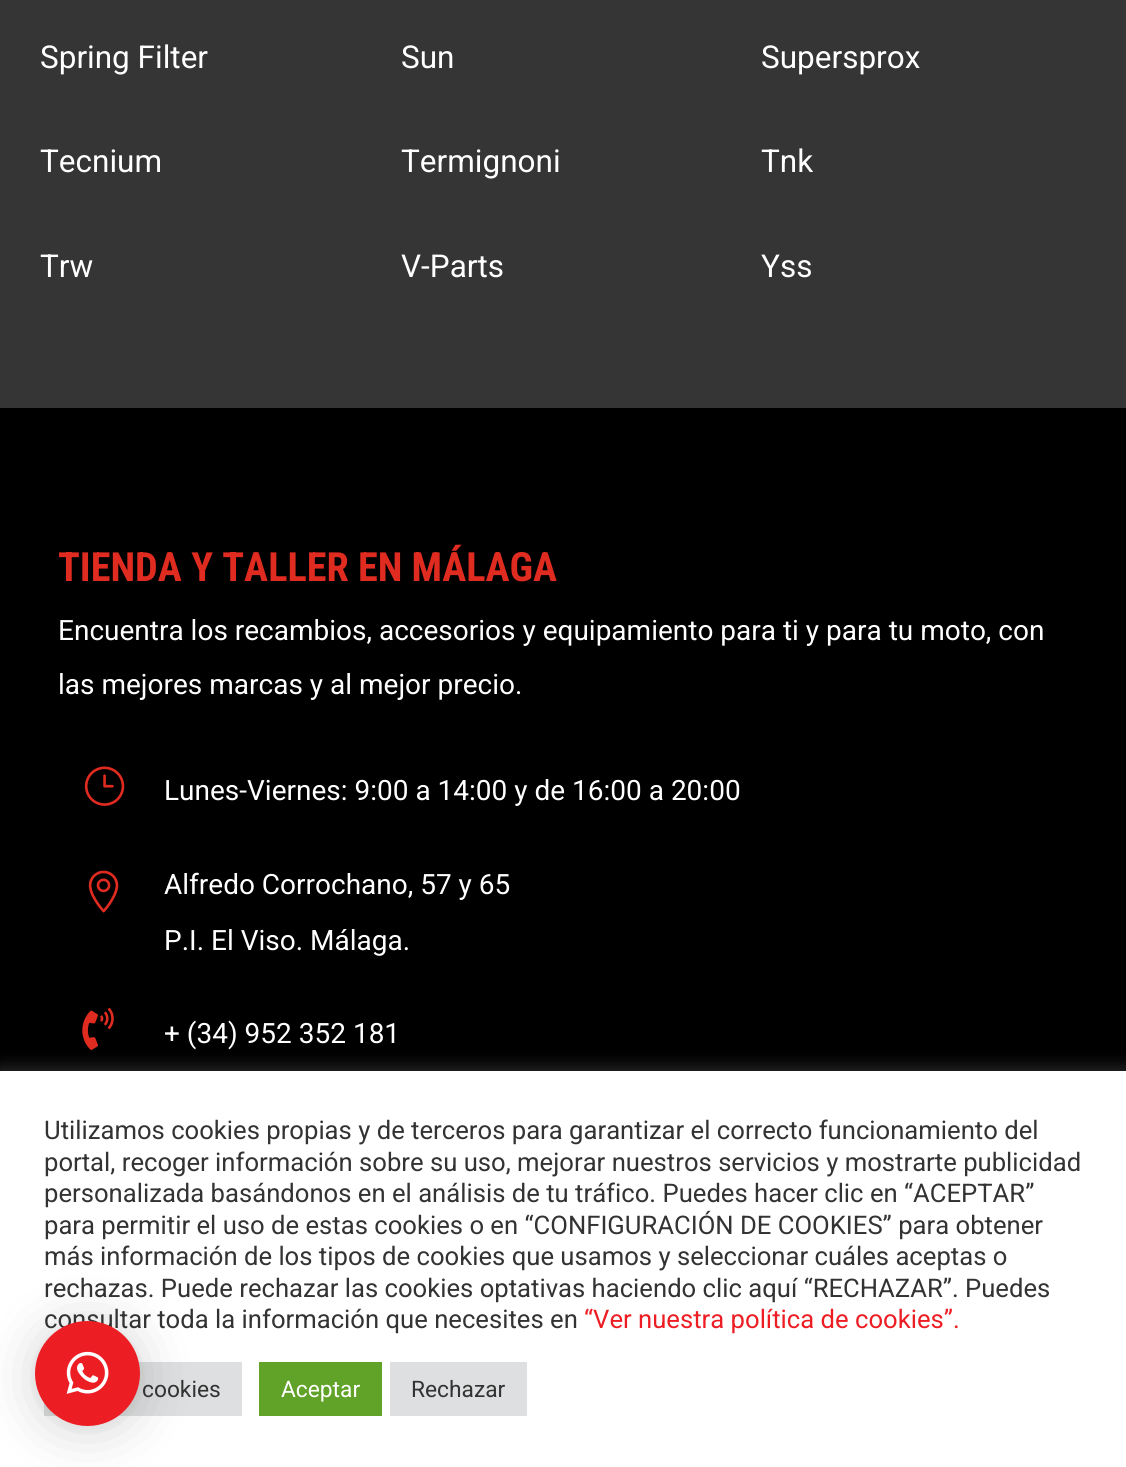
#include <cairo/cairo.h>
#include <math.h>
#include <stddef.h>

typedef struct { double x, y; const char *s; } line_t;
typedef struct { double x, y, w, h; unsigned color; } box_t;
static cairo_t *cr;

static void rgb(unsigned color)
{
	cairo_set_source_rgb(cr, (color >> 16) / 255.0, (color >> 8 & 255) / 255.0, (color & 255) / 255.0);
}

static void rrect(double x, double y, double w, double h, double r)
{
	cairo_new_sub_path(cr);
	cairo_arc(cr, x + w - r, y + h - r, r, 0, M_PI / 2);
	cairo_arc(cr, x + r, y + h - r, r, M_PI / 2, M_PI);
	cairo_arc(cr, x + r, y + r, r, M_PI, 1.5 * M_PI);
	cairo_arc(cr, x + w - r, y + r, r, 1.5 * M_PI, 2 * M_PI);
	cairo_close_path(cr);
}

static void soft_shadow(double x, double y, double w, double h, double r, double blur, double alpha)
{
	cairo_push_group_with_content(cr, CAIRO_CONTENT_ALPHA);
	cairo_set_operator(cr, CAIRO_OPERATOR_SOURCE);
	for (int i = 15; i >= -15 && fmin(w, h) + blur * i / 3 > 0; i -= 2) {
		double e = blur * i / 6;
		cairo_set_source_rgba(cr, 0, 0, 0, alpha * erfc((i - 1) / 8.5) / 2);
		rrect(x - e, y - e, w + 2 * e, h + 2 * e, fmax(0, fmin(r + e + blur * .6, fmin(w, h) / 2 + e)));
		cairo_fill(cr);
	}
	cairo_pattern_t *soft = cairo_pop_group(cr);
	cairo_mask(cr, soft);
	cairo_pattern_destroy(soft);
}

static void image(const char *path, double x, double y, double w, double h)
{
	cairo_surface_t *image = cairo_image_surface_create_from_png(path);
	cairo_save(cr);
	cairo_set_source_surface(cr, image, x, y);
	cairo_rectangle(cr, x, y, w, h);
	cairo_fill(cr);
	cairo_restore(cr);
	cairo_surface_destroy(image);
}

int main(void) {
	cairo_surface_t *surface = cairo_image_surface_create(CAIRO_FORMAT_RGB24, 1126, 1467);
	cr = cairo_create(surface);
	cairo_font_options_t *options = cairo_font_options_create();
	cairo_font_options_set_hint_metrics(options, CAIRO_HINT_METRICS_OFF);
	cairo_font_options_set_hint_style(options, CAIRO_HINT_STYLE_NONE);
	cairo_set_font_options(cr, options);
	cairo_set_miter_limit(cr, 4);
	rgb(0x353535);
	cairo_paint(cr);
	rgb(0x000000);
	cairo_rectangle(cr, 0, 408, 1126, 663);
	cairo_fill(cr);
	image("img/1.png", 84, 766, 41, 40);
	image("img/2.png", 88, 870, 31, 43);
	image("img/3.png", 82, 1007, 32, 43);
	rgb(0xacabab);
	soft_shadow(0, 1069, 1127, 398, 0, 9, 0.3);
	{
		static const box_t items[] = {
			{0, 1071, 1126, 396, 0xffffff},
			{44, 1362, 198, 54, 0xdedfe0},
			{259, 1362, 123, 54, 0x61a229},
			{390, 1362, 137, 54, 0xdedfe0},
		};
		for (size_t i = 0; i < sizeof items / sizeof *items; i++) {
			rgb(items[i].color);
			cairo_rectangle(cr, items[i].x, items[i].y, items[i].w, items[i].h);
			cairo_fill(cr);
		}
	}
	rgb(0x000000);
	soft_shadow(35, 1325, 105, 105, 52.5, 28, 0.16);
	soft_shadow(35, 1323, 105, 105, 52.5, 5, 0.06);
	cairo_select_font_face(cr, "Roboto", CAIRO_FONT_SLANT_NORMAL, CAIRO_FONT_WEIGHT_NORMAL);
	cairo_set_font_size(cr, 31.5);
	rgb(0xffffff);
	{
		static const line_t items[] = {
			{40, 68, "Spring Filter"},
			{401, 68, "Sun"},
			{761, 68, "Supersprox"},
			{40, 172, "Tecnium"},
			{401, 172, "Termignoni"},
			{761, 172, "Tnk"},
			{40, 277, "Trw"},
			{401, 277, "V-Parts"},
			{761, 277, "Yss"},
		};
		for (size_t i = 0; i < sizeof items / sizeof *items; i++) {
			cairo_move_to(cr, items[i].x, items[i].y);
			cairo_show_text(cr, items[i].s);
		}
	}
	cairo_select_font_face(cr, "Roboto Condensed", CAIRO_FONT_SLANT_NORMAL, CAIRO_FONT_WEIGHT_BOLD);
	cairo_set_font_size(cr, 40.25);
	rgb(0xe02b20);
	cairo_move_to(cr, 58, 581);
	cairo_show_text(cr, "TIENDA Y TALLER EN MÁLAGA");
	cairo_select_font_face(cr, "Roboto", CAIRO_FONT_SLANT_NORMAL, CAIRO_FONT_WEIGHT_NORMAL);
	cairo_set_font_size(cr, 28);
	rgb(0xffffff);
	{
		static const line_t items[] = {
			{58, 640, "Encuentra los recambios, accesorios y equipamiento para ti y para tu moto, con"},
			{58, 694, "las mejores marcas y al mejor precio."},
			{164, 800, "Lunes-Viernes: 9:00 a 14:00 y de 16:00 a 20:00"},
			{164, 894, "Alfredo Corrochano, 57 y 65"},
			{164, 950, "P.I. El Viso. Málaga."},
			{164, 1043, "+ (34) 952 352 181"},
		};
		for (size_t i = 0; i < sizeof items / sizeof *items; i++) {
			cairo_move_to(cr, items[i].x, items[i].y);
			cairo_show_text(cr, items[i].s);
		}
	}
	cairo_set_font_size(cr, 25.65);
	rgb(0x333333);
	{
		static const line_t items[] = {
			{44, 1139, "Utilizamos cookies propias y de terceros para garantizar el correcto funcionamiento del"},
			{44, 1171, "portal, recoger información sobre su uso, mejorar nuestros servicios y mostrarte publicidad"},
			{44, 1202, "personalizada basándonos en el análisis de tu tráfico. Puedes hacer clic en “ACEPTAR”"},
			{44, 1234, "para permitir el uso de estas cookies o en “CONFIGURACIÓN DE COOKIES” para obtener"},
			{44, 1265, "más información de los tipos de cookies que usamos y seleccionar cuáles aceptas o"},
			{44, 1297, "rechazas. Puede rechazar las cookies optativas haciendo clic aquí “RECHAZAR”. Puedes"},
			{44, 1328, "consultar toda la información que necesites en"},
		};
		for (size_t i = 0; i < sizeof items / sizeof *items; i++) {
			cairo_move_to(cr, items[i].x, items[i].y);
			cairo_show_text(cr, items[i].s);
		}
	}
	rgb(0xed1d24);
	cairo_move_to(cr, 584, 1328);
	cairo_show_text(cr, "“Ver nuestra política de cookies”.");
	cairo_set_font_size(cr, 22.75);
	rgb(0x333333);
	cairo_move_to(cr, 142, 1397);
	cairo_show_text(cr, "cookies");
	rgb(0xffffff);
	cairo_move_to(cr, 281, 1397);
	cairo_show_text(cr, "Aceptar");
	rgb(0x333333);
	cairo_move_to(cr, 411, 1397);
	cairo_show_text(cr, "Rechazar");
	rgb(0xed1d24);
	cairo_new_path(cr);
	cairo_arc(cr, 87.5, 1373.5, 52.5, 0, 2 * M_PI);
	cairo_fill(cr);
	image("img/4.png", 66, 1351, 43, 43);
	cairo_surface_write_to_png(surface, "page.png");
	cairo_font_options_destroy(options);
	cairo_destroy(cr);
	cairo_surface_destroy(surface);
	return 0;
}
